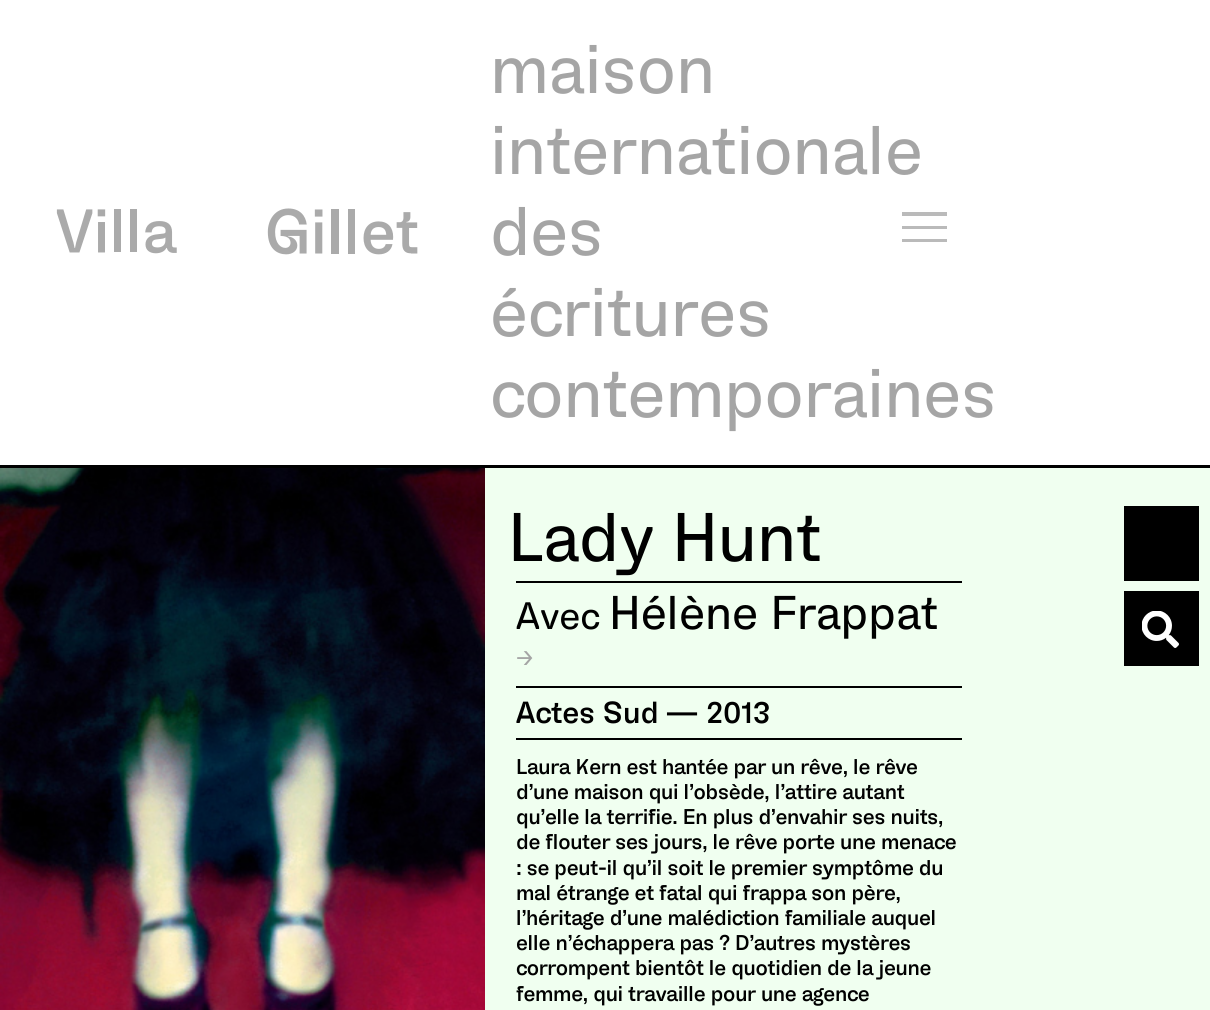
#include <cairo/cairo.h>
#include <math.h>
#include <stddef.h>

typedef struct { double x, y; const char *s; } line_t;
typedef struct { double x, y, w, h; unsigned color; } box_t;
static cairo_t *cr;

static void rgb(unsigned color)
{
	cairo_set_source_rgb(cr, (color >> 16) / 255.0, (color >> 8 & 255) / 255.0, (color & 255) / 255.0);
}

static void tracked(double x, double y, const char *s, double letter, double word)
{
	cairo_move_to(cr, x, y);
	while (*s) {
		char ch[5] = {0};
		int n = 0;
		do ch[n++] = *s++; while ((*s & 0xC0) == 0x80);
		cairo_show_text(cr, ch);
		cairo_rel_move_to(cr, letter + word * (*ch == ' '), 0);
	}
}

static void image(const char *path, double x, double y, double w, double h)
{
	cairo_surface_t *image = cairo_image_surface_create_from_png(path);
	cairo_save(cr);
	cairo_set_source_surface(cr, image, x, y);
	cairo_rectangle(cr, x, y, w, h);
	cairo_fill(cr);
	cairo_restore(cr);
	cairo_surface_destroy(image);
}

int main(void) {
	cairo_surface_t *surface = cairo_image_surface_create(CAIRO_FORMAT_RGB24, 1210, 1010);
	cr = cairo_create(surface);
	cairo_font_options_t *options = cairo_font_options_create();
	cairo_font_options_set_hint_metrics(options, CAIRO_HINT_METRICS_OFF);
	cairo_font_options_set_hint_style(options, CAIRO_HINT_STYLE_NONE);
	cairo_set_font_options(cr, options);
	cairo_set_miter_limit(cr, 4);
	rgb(0xf0fff0);
	cairo_paint(cr);
	rgb(0xffffff);
	cairo_rectangle(cr, 0, 0, 1210, 465);
	cairo_fill(cr);
	rgb(0x000000);
	cairo_rectangle(cr, 0, 465, 1210, 3);
	cairo_fill(cr);
	image("img/1.png", 56, 209, 121, 45);
	image("img/2.png", 267, 208, 151, 47);
	{
		static const box_t items[] = {
			{902, 212, 45, 4, 0xbababa},
			{902, 226, 45, 3, 0xbababa},
			{902, 239, 45, 3, 0xbababa},
		};
		for (size_t i = 0; i < sizeof items / sizeof *items; i++) {
			rgb(items[i].color);
			cairo_rectangle(cr, items[i].x, items[i].y, items[i].w, items[i].h);
			cairo_fill(cr);
		}
	}
	image("img/3.png", 0, 468, 485, 542);
	{
		static const box_t items[] = {
			{516, 581, 446, 2, 0x000000},
			{516, 686, 446, 2, 0x000000},
			{516, 738, 446, 2, 0x000000},
			{1124, 506, 75, 75, 0x000000},
			{1124, 591, 75, 75, 0x000000},
		};
		for (size_t i = 0; i < sizeof items / sizeof *items; i++) {
			rgb(items[i].color);
			cairo_rectangle(cr, items[i].x, items[i].y, items[i].w, items[i].h);
			cairo_fill(cr);
		}
	}
	image("img/4.png", 1142, 611, 37, 37);
	cairo_select_font_face(cr, "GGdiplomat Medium", CAIRO_FONT_SLANT_NORMAL, CAIRO_FONT_WEIGHT_NORMAL);
	cairo_set_font_size(cr, 67.5);
	rgb(0xa5a5a5);
	{
		static const line_t items[] = {
			{490, 93, "maison"},
			{490, 174, "internationale"},
			{490, 255, "des"},
			{490, 336, "écritures"},
			{490, 417, "contemporaines"},
		};
		for (size_t i = 0; i < sizeof items / sizeof *items; i++) {
			cairo_move_to(cr, items[i].x, items[i].y);
			cairo_show_text(cr, items[i].s);
		}
	}
	rgb(0x000000);
	cairo_move_to(cr, 508, 561);
	cairo_show_text(cr, "Lady Hunt");
	cairo_set_font_size(cr, 37.5);
	cairo_move_to(cr, 516, 629);
	cairo_show_text(cr, "Avec");
	cairo_set_font_size(cr, 46.5);
	cairo_move_to(cr, 609, 629);
	cairo_show_text(cr, "Hélène Frappat");
	cairo_set_font_size(cr, 22);
	rgb(0xa5a5a5);
	cairo_move_to(cr, 516, 665);
	cairo_show_text(cr, "→");
	cairo_select_font_face(cr, "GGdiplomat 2 Medium", CAIRO_FONT_SLANT_NORMAL, CAIRO_FONT_WEIGHT_NORMAL);
	cairo_set_font_size(cr, 30);
	rgb(0x000000);
	cairo_move_to(cr, 516, 723);
	cairo_show_text(cr, "Actes Sud");
	cairo_move_to(cr, 666, 723);
	cairo_show_text(cr, "— 2013");
	cairo_set_font_size(cr, 21);
	{
		static const line_t items[] = {
			{516, 774, "Laura Kern est hantée par un rêve, le rêve"},
			{516, 799, "d’une maison qui l’obsède, l’attire autant"},
			{516, 824, "qu’elle la terrifie. En plus d’envahir ses nuits,"},
			{516, 849, "de flouter ses jours, le rêve porte une menace"},
			{516, 875, ": se peut-il qu’il soit le premier symptôme du"},
			{516, 900, "mal étrange et fatal qui frappa son père,"},
			{516, 925, "l’héritage d’une malédiction familiale auquel"},
			{516, 950, "elle n’échappera pas ? D’autres mystères"},
			{516, 975, "corrompent bientôt le quotidien de la jeune"},
			{516, 1001, "femme, qui travaille pour une agence"},
		};
		for (size_t i = 0; i < sizeof items / sizeof *items; i++) {
			tracked(items[i].x, items[i].y, items[i].s, -0.3, 0);
		}
	}
	cairo_surface_write_to_png(surface, "page.png");
	cairo_font_options_destroy(options);
	cairo_destroy(cr);
	cairo_surface_destroy(surface);
	return 0;
}
